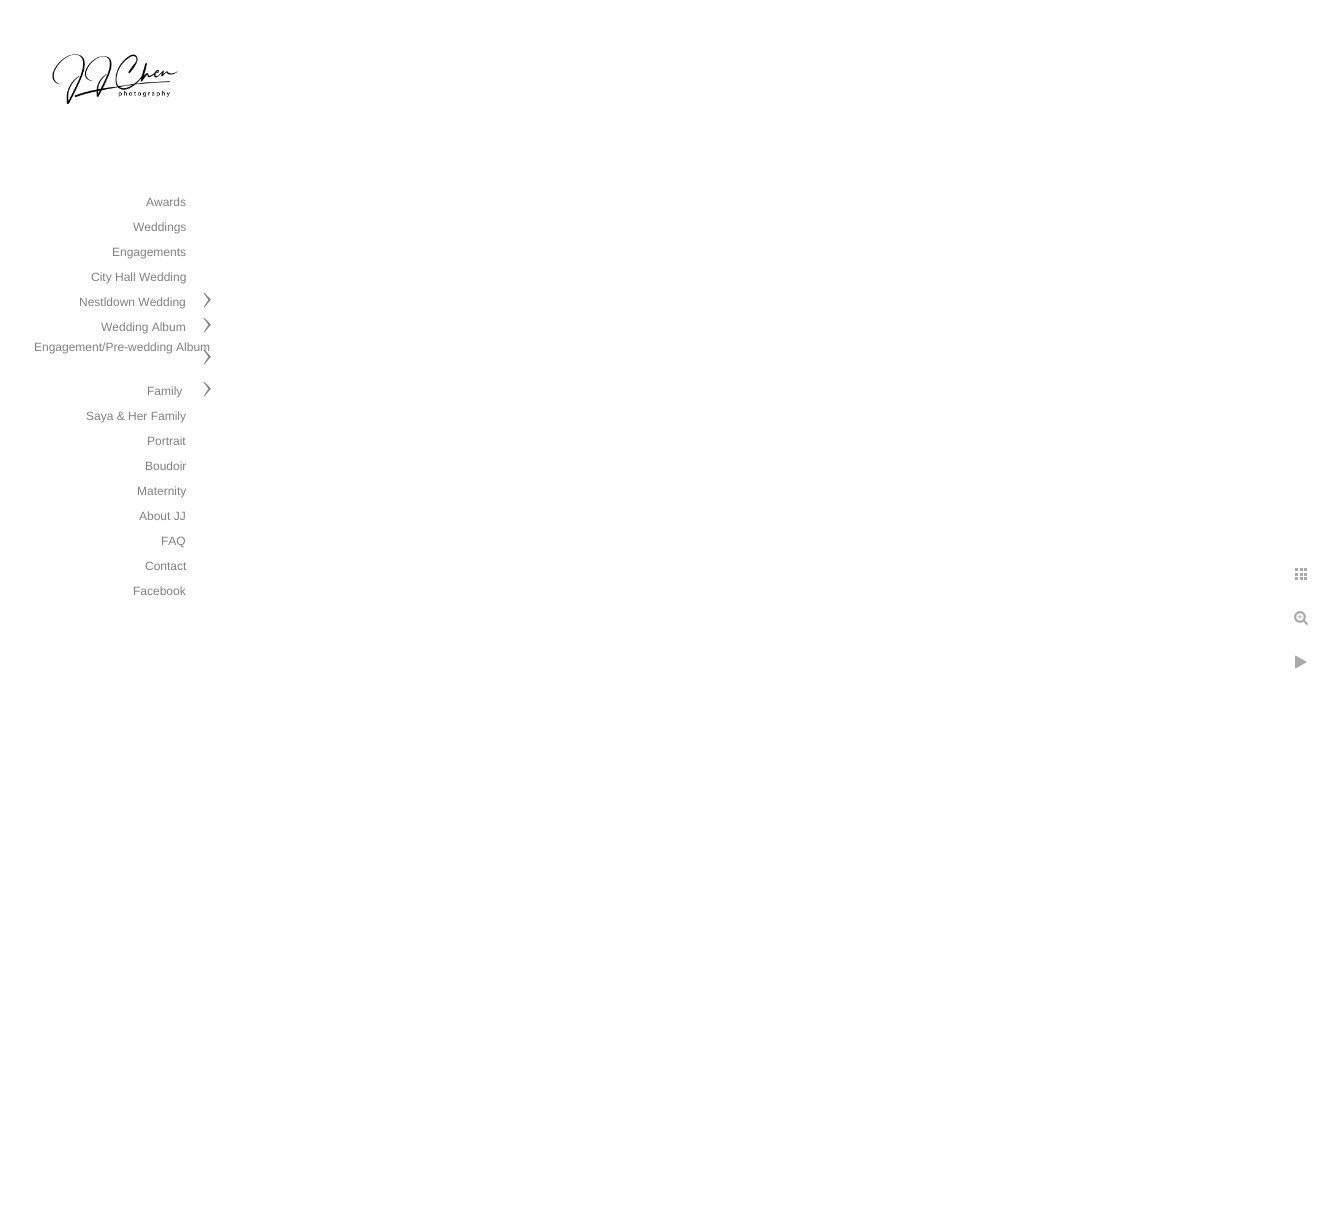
#include <cairo/cairo.h>
#include <math.h>
#include <stddef.h>

typedef struct { double x, y; const char *s; } line_t;
static cairo_t *cr;

static void rgb(unsigned color)
{
	cairo_set_source_rgb(cr, (color >> 16) / 255.0, (color >> 8 & 255) / 255.0, (color & 255) / 255.0);
}

static void image(const char *path, double x, double y, double w, double h)
{
	cairo_surface_t *image = cairo_image_surface_create_from_png(path);
	cairo_save(cr);
	cairo_set_source_surface(cr, image, x, y);
	cairo_rectangle(cr, x, y, w, h);
	cairo_fill(cr);
	cairo_restore(cr);
	cairo_surface_destroy(image);
}

int main(void) {
	cairo_surface_t *surface = cairo_image_surface_create(CAIRO_FORMAT_RGB24, 1328, 1215);
	cr = cairo_create(surface);
	cairo_font_options_t *options = cairo_font_options_create();
	cairo_font_options_set_hint_metrics(options, CAIRO_HINT_METRICS_OFF);
	cairo_font_options_set_hint_style(options, CAIRO_HINT_STYLE_NONE);
	cairo_set_font_options(cr, options);
	cairo_set_miter_limit(cr, 4);
	rgb(0xffffff);
	cairo_paint(cr);
	image("img/1.png", 52, 54, 126, 50);
	image("img/2.png", 203, 292, 8, 16);
	image("img/2.png", 203, 317, 8, 16);
	image("img/2.png", 203, 381, 8, 16);
	image("img/4.png", 1295, 568, 12, 12);
	image("img/5.png", 1294, 611, 14, 14);
	image("img/6.png", 1295, 655, 12, 14);
	cairo_select_font_face(cr, "Liberation Sans", CAIRO_FONT_SLANT_NORMAL, CAIRO_FONT_WEIGHT_NORMAL);
	cairo_set_font_size(cr, 12);
	rgb(0x808080);
	{
		static const line_t items[] = {
			{146, 206, "Awards"},
			{133, 231, "Weddings"},
			{112, 256, "Engagements"},
			{91, 281, "City Hall Wedding"},
			{79, 306, "Nestldown Wedding"},
			{101, 331, "Wedding Album"},
			{34, 351, "Engagement/Pre-wedding Album"},
		};
		for (size_t i = 0; i < sizeof items / sizeof *items; i++) {
			cairo_move_to(cr, items[i].x, items[i].y);
			cairo_show_text(cr, items[i].s);
		}
	}
	image("img/3.png", 203, 349, 8, 16);
	{
		static const line_t items[] = {
			{147, 395, "Family"},
			{86, 420, "Saya & Her Family"},
			{147, 445, "Portrait"},
			{145, 470, "Boudoir"},
			{137, 495, "Maternity"},
			{139, 520, "About JJ"},
			{161, 545, "FAQ"},
			{145, 570, "Contact"},
			{133, 595, "Facebook"},
		};
		for (size_t i = 0; i < sizeof items / sizeof *items; i++) {
			cairo_move_to(cr, items[i].x, items[i].y);
			cairo_show_text(cr, items[i].s);
		}
	}
	cairo_surface_write_to_png(surface, "page.png");
	cairo_font_options_destroy(options);
	cairo_destroy(cr);
	cairo_surface_destroy(surface);
	return 0;
}
